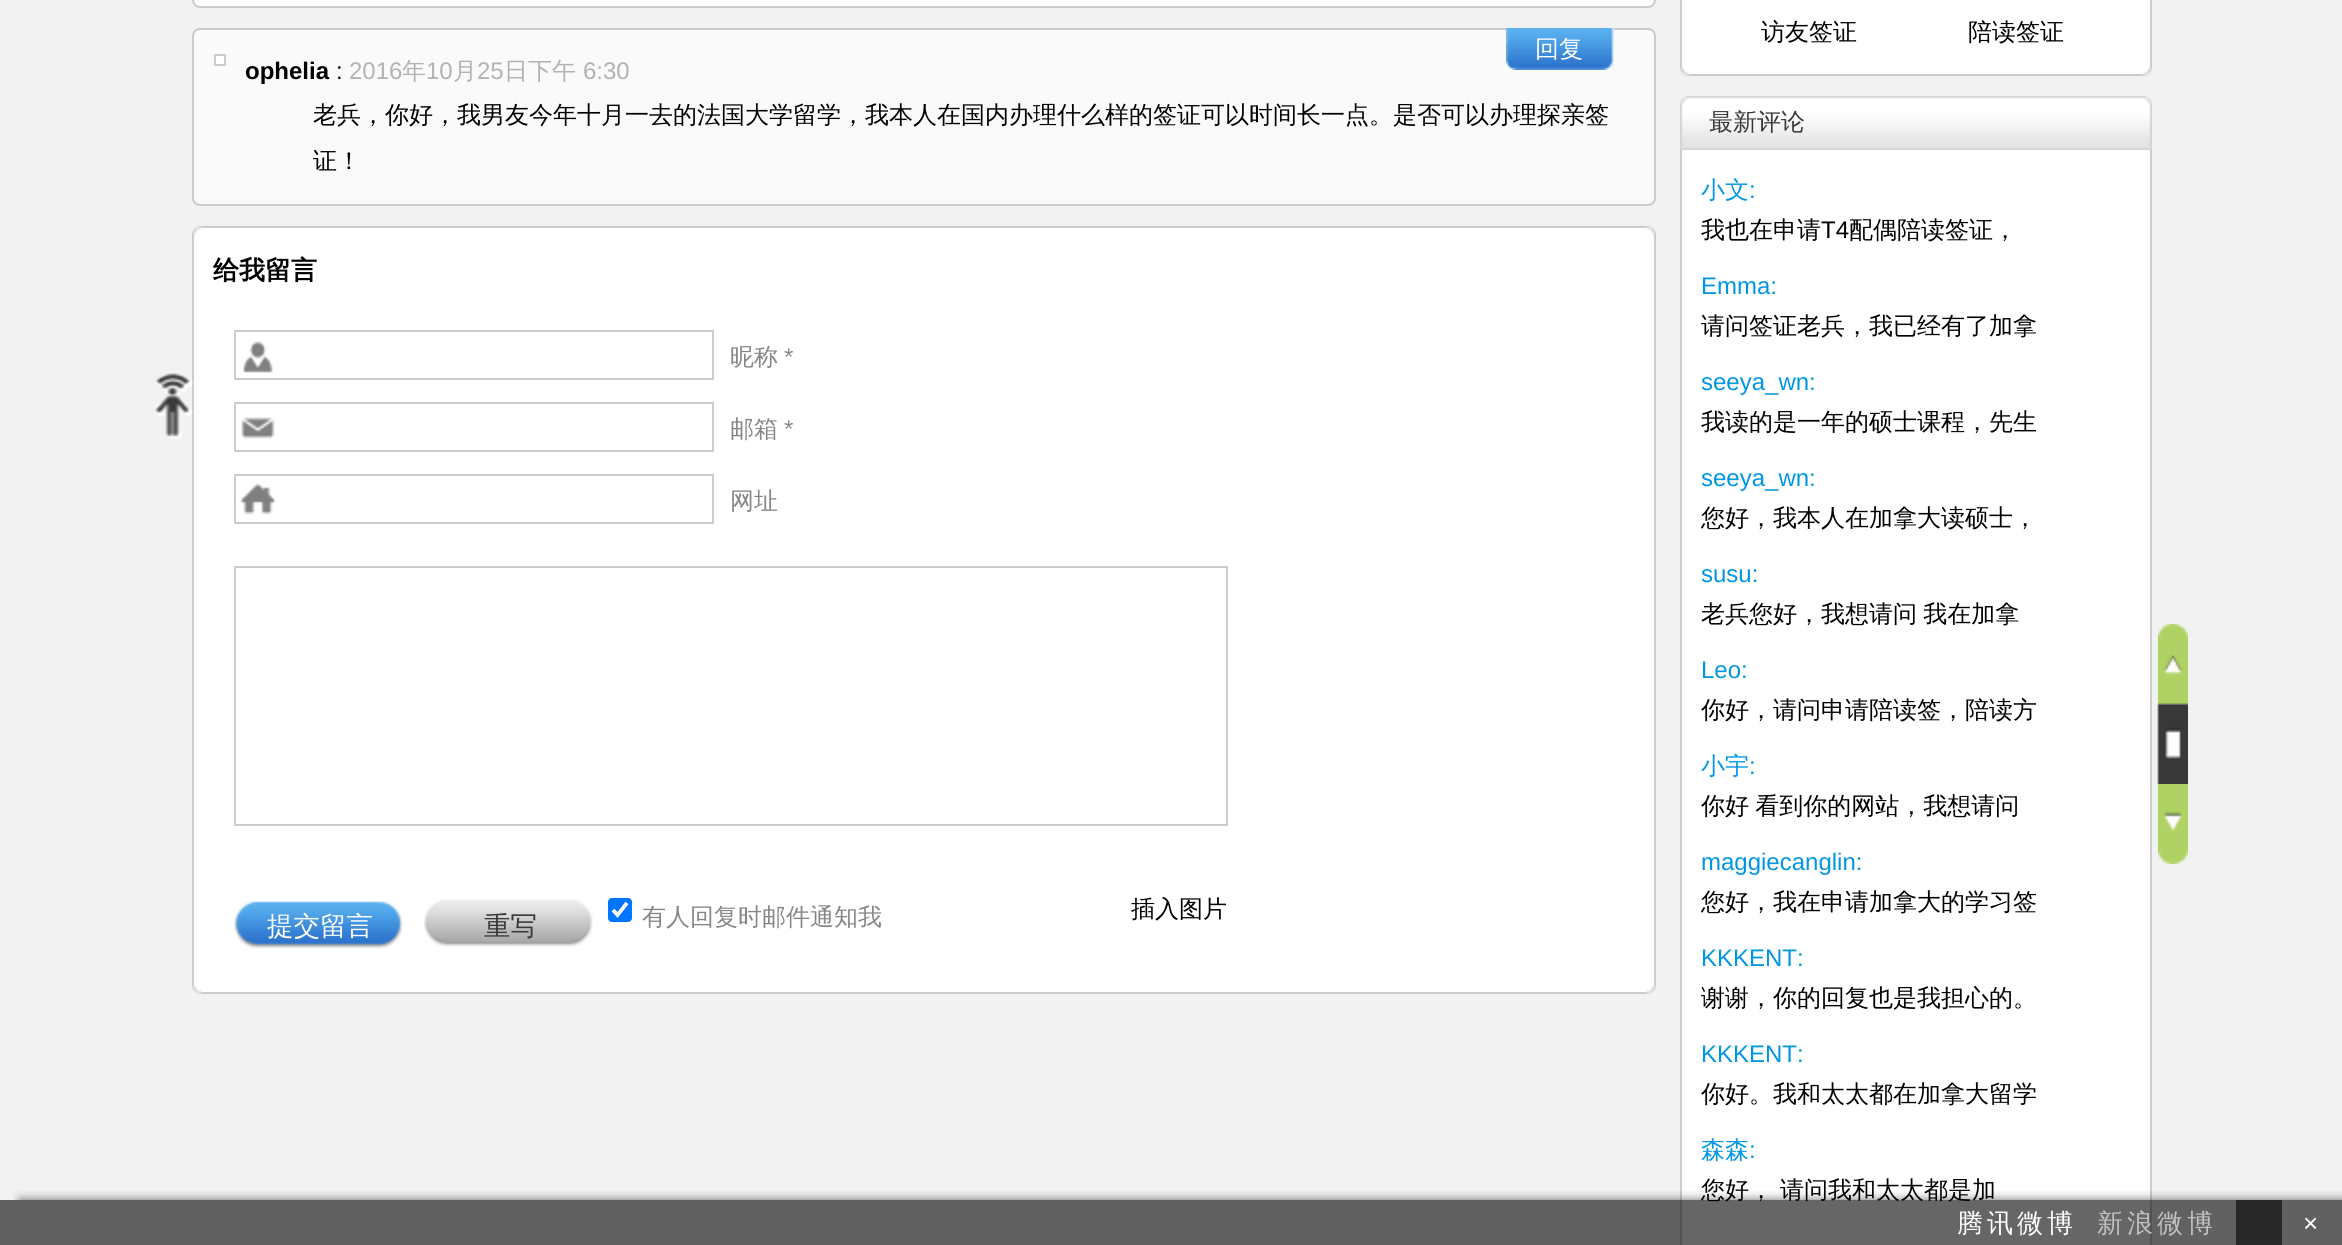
#include <cairo/cairo.h>
#include <math.h>
#include <stddef.h>

typedef struct { double x, y; const char *s; } line_t;
typedef struct { double x, y, w, h; unsigned color; } box_t;
static cairo_t *cr;

static void rgb(unsigned color)
{
	cairo_set_source_rgb(cr, (color >> 16) / 255.0, (color >> 8 & 255) / 255.0, (color & 255) / 255.0);
}

static void tracked(double x, double y, const char *s, double letter, double word)
{
	cairo_move_to(cr, x, y);
	while (*s) {
		char ch[5] = {0};
		int n = 0;
		do ch[n++] = *s++; while ((*s & 0xC0) == 0x80);
		cairo_show_text(cr, ch);
		cairo_rel_move_to(cr, letter + word * (*ch == ' '), 0);
	}
}

static void rrect(double x, double y, double w, double h, double r)
{
	cairo_new_sub_path(cr);
	cairo_arc(cr, x + w - r, y + h - r, r, 0, M_PI / 2);
	cairo_arc(cr, x + r, y + h - r, r, M_PI / 2, M_PI);
	cairo_arc(cr, x + r, y + r, r, M_PI, 1.5 * M_PI);
	cairo_arc(cr, x + w - r, y + r, r, 1.5 * M_PI, 2 * M_PI);
	cairo_close_path(cr);
}

static void soft_shadow(double x, double y, double w, double h, double r, double blur, double alpha)
{
	cairo_push_group_with_content(cr, CAIRO_CONTENT_ALPHA);
	cairo_set_operator(cr, CAIRO_OPERATOR_SOURCE);
	for (int i = 15; i >= -15 && fmin(w, h) + blur * i / 3 > 0; i -= 2) {
		double e = blur * i / 6;
		cairo_set_source_rgba(cr, 0, 0, 0, alpha * erfc((i - 1) / 8.5) / 2);
		rrect(x - e, y - e, w + 2 * e, h + 2 * e, fmax(0, fmin(r + e + blur * .6, fmin(w, h) / 2 + e)));
		cairo_fill(cr);
	}
	cairo_pattern_t *soft = cairo_pop_group(cr);
	cairo_mask(cr, soft);
	cairo_pattern_destroy(soft);
}

static void image(const char *path, double x, double y, double w, double h)
{
	cairo_surface_t *image = cairo_image_surface_create_from_png(path);
	cairo_save(cr);
	cairo_set_source_surface(cr, image, x, y);
	cairo_rectangle(cr, x, y, w, h);
	cairo_fill(cr);
	cairo_restore(cr);
	cairo_surface_destroy(image);
}

int main(void) {
	cairo_surface_t *surface = cairo_image_surface_create(CAIRO_FORMAT_RGB24, 2342, 1245);
	cr = cairo_create(surface);
	cairo_font_options_t *options = cairo_font_options_create();
	cairo_font_options_set_hint_metrics(options, CAIRO_HINT_METRICS_OFF);
	cairo_font_options_set_hint_style(options, CAIRO_HINT_STYLE_NONE);
	cairo_set_font_options(cr, options);
	cairo_set_miter_limit(cr, 4);
	rgb(0xf2f2f2);
	cairo_paint(cr);
	rgb(0xcccccc);
	cairo_rectangle(cr, 192, 236, 2, 748);
	cairo_fill(cr);
	image("img/1.png", 155, 373, 38, 65);
	rgb(0xffffff);
	rrect(193, -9, 1462, 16, 7);
	cairo_fill_preserve(cr);
	rgb(0xcccccc);
	cairo_stroke(cr);
	rgb(0xfafafa);
	rrect(193, 29, 1462, 176, 7);
	cairo_fill_preserve(cr);
	rgb(0xcccccc);
	cairo_stroke(cr);
	rgb(0xffffff);
	cairo_rectangle(cr, 215, 55, 10, 10);
	cairo_fill_preserve(cr);
	rgb(0xcccccc);
	cairo_stroke(cr);
	image("img/2.png", 1506, 28, 108, 42);
	{
		static const box_t items[] = {
			{194, 228, 1460, 764, 0xffffff},
			{202, 226, 1444, 2, 0xcccccc},
			{1654, 236, 2, 748, 0xcccccc},
		};
		for (size_t i = 0; i < sizeof items / sizeof *items; i++) {
			rgb(items[i].color);
			cairo_rectangle(cr, items[i].x, items[i].y, items[i].w, items[i].h);
			cairo_fill(cr);
		}
	}
	image("img/3.png", 192, 226, 10, 10);
	image("img/4.png", 1646, 226, 10, 10);
	image("img/5.png", 243, 341, 30, 32);
	cairo_rectangle(cr, 235, 331, 478, 48);
	cairo_stroke(cr);
	image("img/6.png", 241, 417, 34, 22);
	cairo_rectangle(cr, 235, 403, 478, 48);
	cairo_stroke(cr);
	image("img/7.png", 239, 483, 37, 32);
	cairo_rectangle(cr, 235, 475, 478, 48);
	cairo_stroke(cr);
	cairo_rectangle(cr, 235, 567, 992, 258);
	cairo_stroke(cr);
	image("img/8.png", 234, 901, 169, 48);
	image("img/9.png", 424, 899, 169, 48);
	rgb(0x0075ff);
	rrect(608, 898, 24, 24, 4);
	cairo_fill(cr);
	cairo_new_path(cr);
	cairo_move_to(cr, 613, 910);
	cairo_line_to(cr, 617.5, 915);
	cairo_line_to(cr, 627, 903);
	rgb(0xffffff);
	cairo_set_line_width(cr, 3.8);
	cairo_stroke(cr);
	rgb(0xcccccc);
	cairo_rectangle(cr, 202, 992, 1444, 2);
	cairo_fill(cr);
	image("img/10.png", 192, 984, 10, 10);
	image("img/11.png", 1646, 984, 10, 10);
	{
		static const box_t items[] = {
			{1682, 0, 468, 74, 0xffffff},
			{2150, 0, 2, 66, 0xcccccc},
			{1680, 0, 2, 66, 0xcccccc},
			{1690, 74, 452, 2, 0xcccccc},
		};
		for (size_t i = 0; i < sizeof items / sizeof *items; i++) {
			rgb(items[i].color);
			cairo_rectangle(cr, items[i].x, items[i].y, items[i].w, items[i].h);
			cairo_fill(cr);
		}
	}
	image("img/10.png", 1680, 66, 10, 10);
	image("img/11.png", 2142, 66, 10, 10);
	image("img/12.png", 1680, 96, 472, 54);
	{
		static const box_t items[] = {
			{1682, 150, 468, 1095, 0xffffff},
			{2150, 150, 2, 1095, 0xcccccc},
			{1680, 150, 2, 1095, 0xcccccc},
		};
		for (size_t i = 0; i < sizeof items / sizeof *items; i++) {
			rgb(items[i].color);
			cairo_rectangle(cr, items[i].x, items[i].y, items[i].w, items[i].h);
			cairo_fill(cr);
		}
	}
	image("img/13.png", 2158, 624, 30, 80);
	rgb(0xffffff);
	cairo_rectangle(cr, 2158, 704, 30, 80);
	cairo_fill(cr);
	image("img/14.png", 2157, 703, 31, 81);
	image("img/15.png", 2158, 784, 30, 80);
	cairo_save(cr);
	cairo_rectangle(cr, 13, 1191, 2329, 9);
	cairo_clip(cr);
	rgb(0x000000);
	soft_shadow(20, 1200, 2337, 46, 0, 5, 0.6);
	cairo_restore(cr);
	cairo_select_font_face(cr, "Liberation Sans", CAIRO_FONT_SLANT_NORMAL, CAIRO_FONT_WEIGHT_BOLD);
	cairo_set_font_size(cr, 24);
	rgb(0x000000);
	cairo_move_to(cr, 245, 79);
	cairo_show_text(cr, "ophelia");
	cairo_select_font_face(cr, "Liberation Sans", CAIRO_FONT_SLANT_NORMAL, CAIRO_FONT_WEIGHT_NORMAL);
	cairo_move_to(cr, 336, 79);
	cairo_show_text(cr, ":");
	rgb(0xb2b2b2);
	cairo_move_to(cr, 349, 79);
	cairo_show_text(cr, "2016");
	cairo_select_font_face(cr, "WenQuanYi Zen Hei Medium", CAIRO_FONT_SLANT_NORMAL, CAIRO_FONT_WEIGHT_NORMAL);
	cairo_move_to(cr, 402, 79);
	cairo_show_text(cr, "年");
	cairo_select_font_face(cr, "Liberation Sans", CAIRO_FONT_SLANT_NORMAL, CAIRO_FONT_WEIGHT_NORMAL);
	cairo_move_to(cr, 426, 79);
	cairo_show_text(cr, "10");
	cairo_select_font_face(cr, "WenQuanYi Zen Hei Medium", CAIRO_FONT_SLANT_NORMAL, CAIRO_FONT_WEIGHT_NORMAL);
	cairo_move_to(cr, 453, 79);
	cairo_show_text(cr, "月");
	cairo_select_font_face(cr, "Liberation Sans", CAIRO_FONT_SLANT_NORMAL, CAIRO_FONT_WEIGHT_NORMAL);
	cairo_move_to(cr, 477, 79);
	cairo_show_text(cr, "25");
	cairo_select_font_face(cr, "WenQuanYi Zen Hei Medium", CAIRO_FONT_SLANT_NORMAL, CAIRO_FONT_WEIGHT_NORMAL);
	cairo_move_to(cr, 504, 79);
	cairo_show_text(cr, "日下午");
	cairo_select_font_face(cr, "Liberation Sans", CAIRO_FONT_SLANT_NORMAL, CAIRO_FONT_WEIGHT_NORMAL);
	cairo_move_to(cr, 583, 79);
	cairo_show_text(cr, "6:30");
	cairo_select_font_face(cr, "WenQuanYi Zen Hei Medium", CAIRO_FONT_SLANT_NORMAL, CAIRO_FONT_WEIGHT_NORMAL);
	rgb(0xffffff);
	cairo_move_to(cr, 1535, 57);
	cairo_show_text(cr, "回复");
	rgb(0x000000);
	cairo_move_to(cr, 313, 123);
	cairo_show_text(cr, "老兵，你好，我男友今年十月一去的法国大学留学，我本人在国内办理什么样的签证可以时间长一点。是否可以办理探亲签");
	cairo_move_to(cr, 313, 169);
	cairo_show_text(cr, "证！");
	cairo_select_font_face(cr, "WenQuanYi Zen Hei", CAIRO_FONT_SLANT_NORMAL, CAIRO_FONT_WEIGHT_BOLD);
	cairo_set_font_size(cr, 26);
	cairo_move_to(cr, 213, 279);
	cairo_show_text(cr, "给我留言");
	cairo_select_font_face(cr, "WenQuanYi Zen Hei Medium", CAIRO_FONT_SLANT_NORMAL, CAIRO_FONT_WEIGHT_NORMAL);
	cairo_set_font_size(cr, 24);
	rgb(0x868686);
	cairo_move_to(cr, 730, 365);
	cairo_show_text(cr, "昵称");
	cairo_select_font_face(cr, "Liberation Sans", CAIRO_FONT_SLANT_NORMAL, CAIRO_FONT_WEIGHT_NORMAL);
	cairo_move_to(cr, 784, 365);
	cairo_show_text(cr, "*");
	cairo_select_font_face(cr, "WenQuanYi Zen Hei Medium", CAIRO_FONT_SLANT_NORMAL, CAIRO_FONT_WEIGHT_NORMAL);
	cairo_move_to(cr, 730, 437);
	cairo_show_text(cr, "邮箱");
	cairo_select_font_face(cr, "Liberation Sans", CAIRO_FONT_SLANT_NORMAL, CAIRO_FONT_WEIGHT_NORMAL);
	cairo_move_to(cr, 784, 437);
	cairo_show_text(cr, "*");
	cairo_select_font_face(cr, "WenQuanYi Zen Hei Medium", CAIRO_FONT_SLANT_NORMAL, CAIRO_FONT_WEIGHT_NORMAL);
	cairo_move_to(cr, 730, 509);
	cairo_show_text(cr, "网址");
	cairo_set_font_size(cr, 26.5);
	rgb(0xffffff);
	cairo_move_to(cr, 267, 935);
	cairo_show_text(cr, "提交留言");
	rgb(0x393939);
	cairo_move_to(cr, 484, 935);
	cairo_show_text(cr, "重写");
	cairo_set_font_size(cr, 24);
	rgb(0x868686);
	cairo_move_to(cr, 642, 925);
	cairo_show_text(cr, "有人回复时邮件通知我");
	rgb(0x000000);
	{
		static const line_t items[] = {
			{1131, 917, "插入图片"},
			{1761, 40, "访友签证"},
			{1968, 40, "陪读签证"},
		};
		for (size_t i = 0; i < sizeof items / sizeof *items; i++) {
			cairo_move_to(cr, items[i].x, items[i].y);
			cairo_show_text(cr, items[i].s);
		}
	}
	rgb(0x393939);
	cairo_move_to(cr, 1709, 130);
	cairo_show_text(cr, "最新评论");
	rgb(0x0196e3);
	cairo_move_to(cr, 1701, 198);
	cairo_show_text(cr, "小文");
	cairo_select_font_face(cr, "Liberation Sans", CAIRO_FONT_SLANT_NORMAL, CAIRO_FONT_WEIGHT_NORMAL);
	cairo_move_to(cr, 1749, 198);
	cairo_show_text(cr, ":");
	cairo_select_font_face(cr, "WenQuanYi Zen Hei Medium", CAIRO_FONT_SLANT_NORMAL, CAIRO_FONT_WEIGHT_NORMAL);
	rgb(0x000000);
	cairo_move_to(cr, 1701, 238);
	cairo_show_text(cr, "我也在申请");
	cairo_select_font_face(cr, "Liberation Sans", CAIRO_FONT_SLANT_NORMAL, CAIRO_FONT_WEIGHT_NORMAL);
	cairo_move_to(cr, 1821, 238);
	cairo_show_text(cr, "T4");
	cairo_select_font_face(cr, "WenQuanYi Zen Hei Medium", CAIRO_FONT_SLANT_NORMAL, CAIRO_FONT_WEIGHT_NORMAL);
	cairo_move_to(cr, 1849, 238);
	cairo_show_text(cr, "配偶陪读签证，");
	cairo_select_font_face(cr, "Liberation Sans", CAIRO_FONT_SLANT_NORMAL, CAIRO_FONT_WEIGHT_NORMAL);
	rgb(0x0196e3);
	cairo_move_to(cr, 1701, 294);
	cairo_show_text(cr, "Emma:");
	cairo_select_font_face(cr, "WenQuanYi Zen Hei Medium", CAIRO_FONT_SLANT_NORMAL, CAIRO_FONT_WEIGHT_NORMAL);
	rgb(0x000000);
	cairo_move_to(cr, 1701, 334);
	cairo_show_text(cr, "请问签证老兵，我已经有了加拿");
	cairo_select_font_face(cr, "Liberation Sans", CAIRO_FONT_SLANT_NORMAL, CAIRO_FONT_WEIGHT_NORMAL);
	rgb(0x0196e3);
	cairo_move_to(cr, 1701, 390);
	cairo_show_text(cr, "seeya_wn:");
	cairo_select_font_face(cr, "WenQuanYi Zen Hei Medium", CAIRO_FONT_SLANT_NORMAL, CAIRO_FONT_WEIGHT_NORMAL);
	rgb(0x000000);
	cairo_move_to(cr, 1701, 430);
	cairo_show_text(cr, "我读的是一年的硕士课程，先生");
	cairo_select_font_face(cr, "Liberation Sans", CAIRO_FONT_SLANT_NORMAL, CAIRO_FONT_WEIGHT_NORMAL);
	rgb(0x0196e3);
	cairo_move_to(cr, 1701, 486);
	cairo_show_text(cr, "seeya_wn:");
	cairo_select_font_face(cr, "WenQuanYi Zen Hei Medium", CAIRO_FONT_SLANT_NORMAL, CAIRO_FONT_WEIGHT_NORMAL);
	rgb(0x000000);
	cairo_move_to(cr, 1701, 526);
	cairo_show_text(cr, "您好，我本人在加拿大读硕士，");
	cairo_select_font_face(cr, "Liberation Sans", CAIRO_FONT_SLANT_NORMAL, CAIRO_FONT_WEIGHT_NORMAL);
	rgb(0x0196e3);
	cairo_move_to(cr, 1701, 582);
	cairo_show_text(cr, "susu:");
	cairo_select_font_face(cr, "WenQuanYi Zen Hei Medium", CAIRO_FONT_SLANT_NORMAL, CAIRO_FONT_WEIGHT_NORMAL);
	rgb(0x000000);
	tracked(1701, 622, "老兵您好，我想请问 我在加拿", 0, -1);
	cairo_select_font_face(cr, "Liberation Sans", CAIRO_FONT_SLANT_NORMAL, CAIRO_FONT_WEIGHT_NORMAL);
	rgb(0x0196e3);
	cairo_move_to(cr, 1701, 678);
	cairo_show_text(cr, "Leo:");
	cairo_select_font_face(cr, "WenQuanYi Zen Hei Medium", CAIRO_FONT_SLANT_NORMAL, CAIRO_FONT_WEIGHT_NORMAL);
	rgb(0x000000);
	cairo_move_to(cr, 1701, 718);
	cairo_show_text(cr, "你好，请问申请陪读签，陪读方");
	rgb(0x0196e3);
	cairo_move_to(cr, 1701, 774);
	cairo_show_text(cr, "小宇");
	cairo_select_font_face(cr, "Liberation Sans", CAIRO_FONT_SLANT_NORMAL, CAIRO_FONT_WEIGHT_NORMAL);
	cairo_move_to(cr, 1749, 774);
	cairo_show_text(cr, ":");
	cairo_select_font_face(cr, "WenQuanYi Zen Hei Medium", CAIRO_FONT_SLANT_NORMAL, CAIRO_FONT_WEIGHT_NORMAL);
	rgb(0x000000);
	tracked(1701, 814, "你好 看到你的网站，我想请问", 0, -1);
	cairo_select_font_face(cr, "Liberation Sans", CAIRO_FONT_SLANT_NORMAL, CAIRO_FONT_WEIGHT_NORMAL);
	rgb(0x0196e3);
	cairo_move_to(cr, 1701, 870);
	cairo_show_text(cr, "maggiecanglin:");
	cairo_select_font_face(cr, "WenQuanYi Zen Hei Medium", CAIRO_FONT_SLANT_NORMAL, CAIRO_FONT_WEIGHT_NORMAL);
	rgb(0x000000);
	cairo_move_to(cr, 1701, 910);
	cairo_show_text(cr, "您好，我在申请加拿大的学习签");
	cairo_select_font_face(cr, "Liberation Sans", CAIRO_FONT_SLANT_NORMAL, CAIRO_FONT_WEIGHT_NORMAL);
	rgb(0x0196e3);
	cairo_move_to(cr, 1701, 966);
	cairo_show_text(cr, "KKKENT:");
	cairo_select_font_face(cr, "WenQuanYi Zen Hei Medium", CAIRO_FONT_SLANT_NORMAL, CAIRO_FONT_WEIGHT_NORMAL);
	rgb(0x000000);
	cairo_move_to(cr, 1701, 1006);
	cairo_show_text(cr, "谢谢，你的回复也是我担心的。");
	cairo_select_font_face(cr, "Liberation Sans", CAIRO_FONT_SLANT_NORMAL, CAIRO_FONT_WEIGHT_NORMAL);
	rgb(0x0196e3);
	cairo_move_to(cr, 1701, 1062);
	cairo_show_text(cr, "KKKENT:");
	cairo_select_font_face(cr, "WenQuanYi Zen Hei Medium", CAIRO_FONT_SLANT_NORMAL, CAIRO_FONT_WEIGHT_NORMAL);
	rgb(0x000000);
	cairo_move_to(cr, 1701, 1102);
	cairo_show_text(cr, "你好。我和太太都在加拿大留学");
	rgb(0x0196e3);
	cairo_move_to(cr, 1701, 1158);
	cairo_show_text(cr, "森森");
	cairo_select_font_face(cr, "Liberation Sans", CAIRO_FONT_SLANT_NORMAL, CAIRO_FONT_WEIGHT_NORMAL);
	cairo_move_to(cr, 1749, 1158);
	cairo_show_text(cr, ":");
	cairo_select_font_face(cr, "WenQuanYi Zen Hei Medium", CAIRO_FONT_SLANT_NORMAL, CAIRO_FONT_WEIGHT_NORMAL);
	rgb(0x000000);
	cairo_move_to(cr, 1701, 1198);
	cairo_show_text(cr, "您好，");
	cairo_move_to(cr, 1780, 1198);
	cairo_show_text(cr, "请问我和太太都是加");
	cairo_set_source_rgba(cr, 0, 0, 0, 0.6);
	cairo_rectangle(cr, 0, 1200, 2342, 45);
	cairo_fill(cr);
	cairo_set_font_size(cr, 26);
	rgb(0xffffff);
	tracked(1957, 1232, "腾讯微博", 4, 0);
	rgb(0xc1c1c1);
	tracked(2097, 1232, "新浪微博", 4, 0);
	rgb(0x282727);
	cairo_rectangle(cr, 2236, 1200, 46, 45);
	cairo_fill(cr);
	cairo_select_font_face(cr, "Liberation Sans", CAIRO_FONT_SLANT_NORMAL, CAIRO_FONT_WEIGHT_NORMAL);
	rgb(0xffffff);
	tracked(2303, 1232, "×", 4, 0);
	cairo_surface_write_to_png(surface, "page.png");
	cairo_font_options_destroy(options);
	cairo_destroy(cr);
	cairo_surface_destroy(surface);
	return 0;
}
